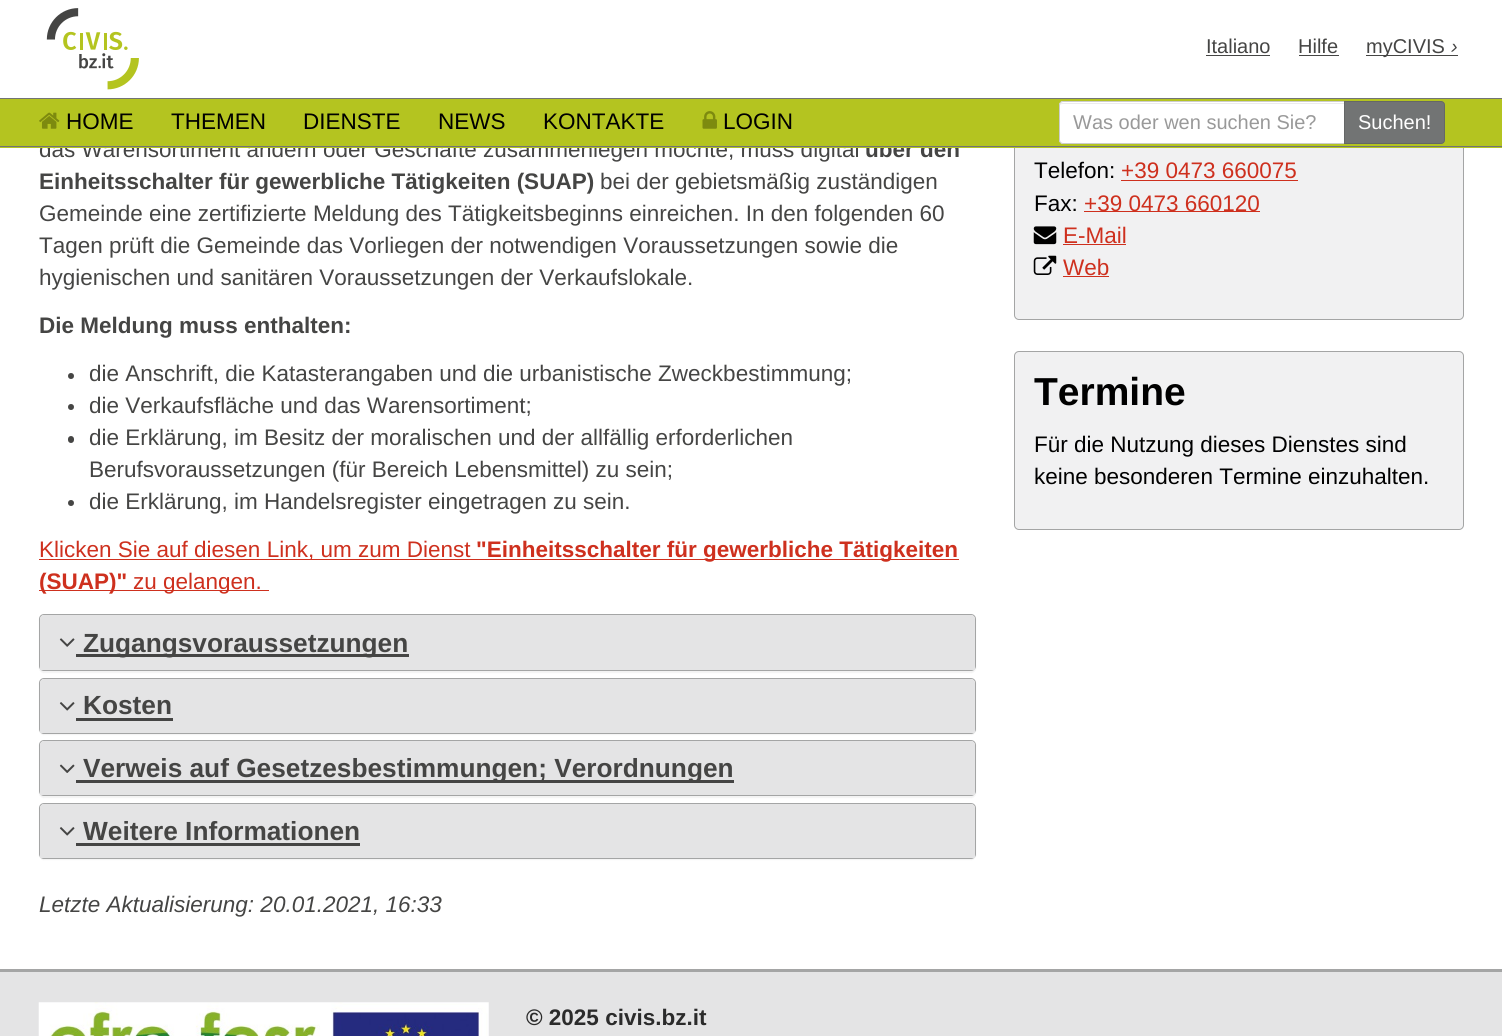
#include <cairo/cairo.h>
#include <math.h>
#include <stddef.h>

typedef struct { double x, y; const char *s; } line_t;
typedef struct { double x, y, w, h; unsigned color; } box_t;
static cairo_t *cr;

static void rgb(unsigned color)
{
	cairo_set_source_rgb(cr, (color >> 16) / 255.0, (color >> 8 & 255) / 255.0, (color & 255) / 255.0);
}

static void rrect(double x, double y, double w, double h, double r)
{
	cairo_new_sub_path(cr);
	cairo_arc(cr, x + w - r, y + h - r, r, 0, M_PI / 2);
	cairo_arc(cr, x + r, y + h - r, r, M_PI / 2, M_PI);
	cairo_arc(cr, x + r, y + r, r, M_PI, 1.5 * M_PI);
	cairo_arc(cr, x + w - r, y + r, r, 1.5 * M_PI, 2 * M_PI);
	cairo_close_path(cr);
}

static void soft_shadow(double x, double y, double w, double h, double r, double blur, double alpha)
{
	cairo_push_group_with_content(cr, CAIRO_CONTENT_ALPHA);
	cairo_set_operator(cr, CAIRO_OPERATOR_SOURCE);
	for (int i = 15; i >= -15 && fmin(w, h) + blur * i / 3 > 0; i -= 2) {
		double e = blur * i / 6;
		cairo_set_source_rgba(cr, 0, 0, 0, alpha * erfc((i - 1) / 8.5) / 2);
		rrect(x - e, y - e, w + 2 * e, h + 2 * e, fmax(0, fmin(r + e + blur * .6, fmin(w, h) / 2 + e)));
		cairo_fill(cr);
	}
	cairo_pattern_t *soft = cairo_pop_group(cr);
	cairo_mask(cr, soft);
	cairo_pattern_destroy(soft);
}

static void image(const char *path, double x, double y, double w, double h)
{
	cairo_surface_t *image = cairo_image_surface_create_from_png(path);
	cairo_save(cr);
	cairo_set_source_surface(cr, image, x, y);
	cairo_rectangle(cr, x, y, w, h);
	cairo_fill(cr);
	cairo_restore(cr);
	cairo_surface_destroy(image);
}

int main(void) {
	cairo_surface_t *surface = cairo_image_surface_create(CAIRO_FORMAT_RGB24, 1502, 1036);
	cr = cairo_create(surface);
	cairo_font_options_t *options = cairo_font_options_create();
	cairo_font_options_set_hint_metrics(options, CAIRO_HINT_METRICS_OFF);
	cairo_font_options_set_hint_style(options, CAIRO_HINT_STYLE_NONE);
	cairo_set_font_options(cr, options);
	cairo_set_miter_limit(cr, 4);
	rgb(0xffffff);
	cairo_paint(cr);
	rgb(0xf1f1f2);
	rrect(1014.5, -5.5, 449, 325, 4.5);
	cairo_fill_preserve(cr);
	rgb(0xa4a5a5);
	cairo_set_line_width(cr, 1);
	cairo_stroke(cr);
	rgb(0xffffff);
	cairo_rectangle(cr, 1014, 0, 450, 98);
	cairo_fill(cr);
	rgb(0x727474);
	cairo_rectangle(cr, 0, 98, 1502, 1);
	cairo_fill(cr);
	image("img/1.png", 46, 8, 93, 82);
	{
		static const box_t items[] = {
			{1206, 55, 64, 1, 0x454544},
			{1299, 55, 40, 1, 0x454544},
			{1366, 55, 92, 1, 0x454544},
		};
		for (size_t i = 0; i < sizeof items / sizeof *items; i++) {
			rgb(items[i].color);
			cairo_rectangle(cr, items[i].x, items[i].y, items[i].w, items[i].h);
			cairo_fill(cr);
		}
	}
	cairo_arc(cr, 71, 376, 3, 0, 2 * M_PI);
	cairo_fill(cr);
	cairo_arc(cr, 71, 407, 3, 0, 2 * M_PI);
	cairo_fill(cr);
	rrect(68, 436, 6, 7, 3);
	cairo_fill(cr);
	cairo_arc(cr, 71, 503, 3, 0, 2 * M_PI);
	cairo_fill(cr);
	rgb(0xce301e);
	cairo_rectangle(cr, 39, 559, 920, 1);
	cairo_fill(cr);
	cairo_rectangle(cr, 39, 590, 230, 1);
	cairo_fill(cr);
	rgb(0x000000);
	soft_shadow(39, 615, 937, 58, 5, 0.5, 0.05);
	rrect(39.5, 614.5, 936, 56, 4.5);
	rgb(0xa4a5a5);
	cairo_stroke(cr);
	rgb(0xe4e4e5);
	cairo_new_path(cr);
	cairo_move_to(cr, 44, 615);
	cairo_line_to(cr, 971, 615);
	cairo_curve_to(cr, 973, 615, 975, 617, 975, 619);
	cairo_line_to(cr, 975, 670);
	cairo_line_to(cr, 40, 670);
	cairo_line_to(cr, 40, 619);
	cairo_curve_to(cr, 40, 617, 42, 615, 44, 615);
	cairo_close_path(cr);
	cairo_fill(cr);
	image("img/4.png", 59, 638, 16, 9);
	rgb(0x454544);
	cairo_rectangle(cr, 76, 654, 333, 3);
	cairo_fill(cr);
	rgb(0x000000);
	soft_shadow(39, 679, 937, 56, 5, 0.5, 0.05);
	rrect(39.5, 678.5, 936, 55, 4.5);
	rgb(0xa4a5a5);
	cairo_stroke(cr);
	rgb(0xe4e4e5);
	cairo_new_path(cr);
	cairo_move_to(cr, 44, 679);
	cairo_line_to(cr, 971, 679);
	cairo_curve_to(cr, 973, 679, 975, 681, 975, 683);
	cairo_line_to(cr, 975, 733);
	cairo_line_to(cr, 40, 733);
	cairo_line_to(cr, 40, 683);
	cairo_curve_to(cr, 40, 681, 42, 679, 44, 679);
	cairo_close_path(cr);
	cairo_fill(cr);
	image("img/5.png", 59, 702, 16, 9);
	rgb(0x454544);
	cairo_rectangle(cr, 76, 718, 97, 3);
	cairo_fill(cr);
	rgb(0x000000);
	soft_shadow(39, 741, 937, 57, 5, 0.5, 0.05);
	rrect(39.5, 740.5, 936, 55, 4.5);
	rgb(0xa4a5a5);
	cairo_stroke(cr);
	rgb(0xe4e4e5);
	cairo_new_path(cr);
	cairo_move_to(cr, 44, 741);
	cairo_line_to(cr, 971, 741);
	cairo_curve_to(cr, 973, 741, 975, 743, 975, 745);
	cairo_line_to(cr, 975, 795);
	cairo_line_to(cr, 40, 795);
	cairo_line_to(cr, 40, 745);
	cairo_curve_to(cr, 40, 743, 42, 741, 44, 741);
	cairo_close_path(cr);
	cairo_fill(cr);
	image("img/6.png", 59, 764, 16, 9);
	rgb(0x454544);
	cairo_rectangle(cr, 76, 780, 658, 3);
	cairo_fill(cr);
	rgb(0x000000);
	soft_shadow(39, 804, 937, 56, 5, 0.5, 0.05);
	rrect(39.5, 803.5, 936, 55, 4.5);
	rgb(0xa4a5a5);
	cairo_stroke(cr);
	rgb(0xe4e4e5);
	cairo_new_path(cr);
	cairo_move_to(cr, 44, 804);
	cairo_line_to(cr, 971, 804);
	cairo_curve_to(cr, 973, 804, 975, 806, 975, 808);
	cairo_line_to(cr, 975, 858);
	cairo_line_to(cr, 40, 858);
	cairo_line_to(cr, 40, 808);
	cairo_curve_to(cr, 40, 806, 42, 804, 44, 804);
	cairo_close_path(cr);
	cairo_fill(cr);
	image("img/5.png", 59, 827, 16, 9);
	{
		static const box_t items[] = {
			{76, 843, 284, 3, 0x454544},
			{1121, 180, 177, 1, 0xce301e},
			{1084, 211, 176, 1, 0xce301e},
		};
		for (size_t i = 0; i < sizeof items / sizeof *items; i++) {
			rgb(items[i].color);
			cairo_rectangle(cr, items[i].x, items[i].y, items[i].w, items[i].h);
			cairo_fill(cr);
		}
	}
	image("img/7.png", 1033, 226, 24, 19);
	cairo_rectangle(cr, 1063, 244, 63, 1);
	cairo_fill(cr);
	image("img/8.png", 1033, 255, 24, 20);
	cairo_rectangle(cr, 1063, 276, 46, 1);
	cairo_fill(cr);
	rgb(0xf1f1f2);
	rrect(1014.5, 351.5, 449, 178, 4.5);
	cairo_fill_preserve(cr);
	rgb(0xa4a5a5);
	cairo_stroke(cr);
	rgb(0xe4e4e5);
	cairo_rectangle(cr, 0, 972, 1502, 64);
	cairo_fill(cr);
	rgb(0xa4a5a5);
	cairo_rectangle(cr, 0, 969, 1502, 3);
	cairo_fill(cr);
	image("img/9.png", 38, 1002, 451, 34);
	cairo_select_font_face(cr, "Liberation Sans", CAIRO_FONT_SLANT_NORMAL, CAIRO_FONT_WEIGHT_NORMAL);
	cairo_set_font_size(cr, 20);
	rgb(0x454544);
	{
		static const line_t items[] = {
			{1206, 53, "Italiano"},
			{1298, 53, "Hilfe"},
			{1366, 53, "myCIVIS"},
		};
		for (size_t i = 0; i < sizeof items / sizeof *items; i++) {
			cairo_move_to(cr, items[i].x, items[i].y);
			cairo_show_text(cr, items[i].s);
		}
	}
	cairo_select_font_face(cr, "Liberation Sans", CAIRO_FONT_SLANT_ITALIC, CAIRO_FONT_WEIGHT_NORMAL);
	cairo_move_to(cr, 1451, 53);
	cairo_show_text(cr, "›");
	cairo_select_font_face(cr, "Liberation Sans", CAIRO_FONT_SLANT_NORMAL, CAIRO_FONT_WEIGHT_NORMAL);
	cairo_set_font_size(cr, 22.5);
	cairo_move_to(cr, 39, 157);
	cairo_show_text(cr, "das Warensortiment ändern oder Geschäfte zusammenlegen möchte, muss digital");
	cairo_select_font_face(cr, "Liberation Sans", CAIRO_FONT_SLANT_NORMAL, CAIRO_FONT_WEIGHT_BOLD);
	cairo_move_to(cr, 865, 157);
	cairo_show_text(cr, "über den");
	rgb(0xb4c420);
	cairo_rectangle(cr, 0, 99, 1502, 49);
	cairo_fill(cr);
	rgb(0xffffff);
	cairo_new_path(cr);
	cairo_move_to(cr, 1063, 101);
	cairo_line_to(cr, 1345, 101);
	cairo_line_to(cr, 1345, 144);
	cairo_line_to(cr, 1063, 144);
	cairo_curve_to(cr, 1061, 144, 1059, 142, 1059, 140);
	cairo_line_to(cr, 1059, 105);
	cairo_curve_to(cr, 1059, 103, 1061, 101, 1063, 101);
	cairo_close_path(cr);
	cairo_fill(cr);
	rgb(0xececec);
	cairo_new_path(cr);
	cairo_move_to(cr, 1062, 104);
	cairo_line_to(cr, 1344, 104);
	cairo_line_to(cr, 1344, 103);
	cairo_line_to(cr, 1062, 103);
	cairo_curve_to(cr, 1061, 103, 1060, 104, 1060, 106);
	cairo_curve_to(cr, 1060, 105, 1061, 104, 1062, 104);
	cairo_close_path(cr);
	cairo_fill(cr);
	cairo_new_path(cr);
	cairo_move_to(cr, 1063, 101.5);
	cairo_line_to(cr, 1344.5, 101.5);
	cairo_line_to(cr, 1344.5, 143.5);
	cairo_line_to(cr, 1063, 143.5);
	cairo_curve_to(cr, 1061, 143.5, 1059.5, 142, 1059.5, 140);
	cairo_line_to(cr, 1059.5, 105);
	cairo_curve_to(cr, 1059.5, 103, 1061, 101.5, 1063, 101.5);
	cairo_close_path(cr);
	rgb(0xcccccc);
	cairo_stroke(cr);
	rgb(0x727474);
	cairo_new_path(cr);
	cairo_move_to(cr, 1344.5, 101.5);
	cairo_line_to(cr, 1441, 101.5);
	cairo_curve_to(cr, 1443, 101.5, 1444.5, 103, 1444.5, 105);
	cairo_line_to(cr, 1444.5, 140);
	cairo_curve_to(cr, 1444.5, 142, 1443, 143.5, 1441, 143.5);
	cairo_line_to(cr, 1344.5, 143.5);
	cairo_close_path(cr);
	cairo_fill_preserve(cr);
	rgb(0x656767);
	cairo_stroke(cr);
	cairo_select_font_face(cr, "Liberation Sans", CAIRO_FONT_SLANT_NORMAL, CAIRO_FONT_WEIGHT_NORMAL);
	cairo_set_font_size(cr, 20);
	rgb(0xffffff);
	cairo_move_to(cr, 1358, 129);
	cairo_show_text(cr, "Suchen!");
	rgb(0x999999);
	cairo_move_to(cr, 1073, 129);
	cairo_show_text(cr, "Was oder wen suchen Sie?");
	cairo_set_font_size(cr, 22.5);
	rgb(0x000000);
	cairo_move_to(cr, 723, 129);
	cairo_show_text(cr, "LOGIN");
	image("img/3.png", 702, 111, 15, 18);
	{
		static const line_t items[] = {
			{543, 129, "KONTAKTE"},
			{438, 129, "NEWS"},
			{303, 129, "DIENSTE"},
			{171, 129, "THEMEN"},
			{66, 129, "HOME"},
		};
		for (size_t i = 0; i < sizeof items / sizeof *items; i++) {
			cairo_move_to(cr, items[i].x, items[i].y);
			cairo_show_text(cr, items[i].s);
		}
	}
	image("img/2.png", 39, 112, 21, 17);
	rgb(0x727474);
	cairo_rectangle(cr, 0, 146, 1502, 1);
	cairo_fill(cr);
	cairo_select_font_face(cr, "Liberation Sans", CAIRO_FONT_SLANT_NORMAL, CAIRO_FONT_WEIGHT_BOLD);
	rgb(0x454544);
	cairo_move_to(cr, 39, 189);
	cairo_show_text(cr, "Einheitsschalter für gewerbliche Tätigkeiten (SUAP)");
	cairo_select_font_face(cr, "Liberation Sans", CAIRO_FONT_SLANT_NORMAL, CAIRO_FONT_WEIGHT_NORMAL);
	{
		static const line_t items[] = {
			{600, 189, "bei der gebietsmäßig zuständigen"},
			{39, 221, "Gemeinde eine zertifizierte Meldung des Tätigkeitsbeginns einreichen. In den folgenden 60"},
			{39, 253, "Tagen prüft die Gemeinde das Vorliegen der notwendigen Voraussetzungen sowie die"},
			{39, 285, "hygienischen und sanitären Voraussetzungen der Verkaufslokale."},
		};
		for (size_t i = 0; i < sizeof items / sizeof *items; i++) {
			cairo_move_to(cr, items[i].x, items[i].y);
			cairo_show_text(cr, items[i].s);
		}
	}
	cairo_select_font_face(cr, "Liberation Sans", CAIRO_FONT_SLANT_NORMAL, CAIRO_FONT_WEIGHT_BOLD);
	cairo_move_to(cr, 39, 333);
	cairo_show_text(cr, "Die Meldung muss enthalten:");
	cairo_select_font_face(cr, "Liberation Sans", CAIRO_FONT_SLANT_NORMAL, CAIRO_FONT_WEIGHT_NORMAL);
	{
		static const line_t items[] = {
			{89, 381, "die Anschrift, die Katasterangaben und die urbanistische Zweckbestimmung;"},
			{89, 413, "die Verkaufsfläche und das Warensortiment;"},
			{89, 445, "die Erklärung, im Besitz der moralischen und der allfällig erforderlichen"},
			{89, 477, "Berufsvoraussetzungen (für Bereich Lebensmittel) zu sein;"},
			{89, 509, "die Erklärung, im Handelsregister eingetragen zu sein."},
		};
		for (size_t i = 0; i < sizeof items / sizeof *items; i++) {
			cairo_move_to(cr, items[i].x, items[i].y);
			cairo_show_text(cr, items[i].s);
		}
	}
	rgb(0xce301e);
	cairo_move_to(cr, 39, 557);
	cairo_show_text(cr, "Klicken Sie auf diesen Link, um zum Dienst");
	cairo_select_font_face(cr, "Liberation Sans", CAIRO_FONT_SLANT_NORMAL, CAIRO_FONT_WEIGHT_BOLD);
	cairo_move_to(cr, 476, 557);
	cairo_show_text(cr, "\"Einheitsschalter für gewerbliche Tätigkeiten");
	cairo_move_to(cr, 39, 589);
	cairo_show_text(cr, "(SUAP)\"");
	cairo_select_font_face(cr, "Liberation Sans", CAIRO_FONT_SLANT_NORMAL, CAIRO_FONT_WEIGHT_NORMAL);
	cairo_move_to(cr, 133, 589);
	cairo_show_text(cr, "zu gelangen.");
	cairo_select_font_face(cr, "Liberation Sans", CAIRO_FONT_SLANT_NORMAL, CAIRO_FONT_WEIGHT_BOLD);
	cairo_set_font_size(cr, 26.25);
	rgb(0x454544);
	{
		static const line_t items[] = {
			{83, 652, "Zugangsvoraussetzungen"},
			{83, 714, "Kosten"},
			{83, 777, "Verweis auf Gesetzesbestimmungen; Verordnungen"},
			{83, 840, "Weitere Informationen"},
		};
		for (size_t i = 0; i < sizeof items / sizeof *items; i++) {
			cairo_move_to(cr, items[i].x, items[i].y);
			cairo_show_text(cr, items[i].s);
		}
	}
	cairo_select_font_face(cr, "Liberation Sans", CAIRO_FONT_SLANT_ITALIC, CAIRO_FONT_WEIGHT_NORMAL);
	cairo_set_font_size(cr, 22.5);
	cairo_move_to(cr, 39, 912);
	cairo_show_text(cr, "Letzte Aktualisierung: 20.01.2021, 16:33");
	cairo_select_font_face(cr, "Liberation Sans", CAIRO_FONT_SLANT_NORMAL, CAIRO_FONT_WEIGHT_NORMAL);
	rgb(0x000000);
	cairo_move_to(cr, 1034, 178);
	cairo_show_text(cr, "Telefon:");
	rgb(0xce301e);
	cairo_move_to(cr, 1121, 178);
	cairo_show_text(cr, "+39 0473 660075");
	rgb(0x000000);
	cairo_move_to(cr, 1034, 211);
	cairo_show_text(cr, "Fax:");
	rgb(0xce301e);
	{
		static const line_t items[] = {
			{1084, 211, "+39 0473 660120"},
			{1063, 243, "E-Mail"},
			{1063, 275, "Web"},
		};
		for (size_t i = 0; i < sizeof items / sizeof *items; i++) {
			cairo_move_to(cr, items[i].x, items[i].y);
			cairo_show_text(cr, items[i].s);
		}
	}
	cairo_select_font_face(cr, "Liberation Sans", CAIRO_FONT_SLANT_NORMAL, CAIRO_FONT_WEIGHT_BOLD);
	cairo_set_font_size(cr, 39);
	rgb(0x000000);
	cairo_move_to(cr, 1034, 405);
	cairo_show_text(cr, "Termine");
	cairo_select_font_face(cr, "Liberation Sans", CAIRO_FONT_SLANT_NORMAL, CAIRO_FONT_WEIGHT_NORMAL);
	cairo_set_font_size(cr, 22.5);
	cairo_move_to(cr, 1034, 452);
	cairo_show_text(cr, "Für die Nutzung dieses Dienstes sind");
	cairo_move_to(cr, 1034, 484);
	cairo_show_text(cr, "keine besonderen Termine einzuhalten.");
	cairo_select_font_face(cr, "Liberation Sans", CAIRO_FONT_SLANT_NORMAL, CAIRO_FONT_WEIGHT_BOLD);
	rgb(0x2b2b2b);
	cairo_move_to(cr, 526, 1025);
	cairo_show_text(cr, "© 2025 civis.bz.it");
	cairo_surface_write_to_png(surface, "page.png");
	cairo_font_options_destroy(options);
	cairo_destroy(cr);
	cairo_surface_destroy(surface);
	return 0;
}
